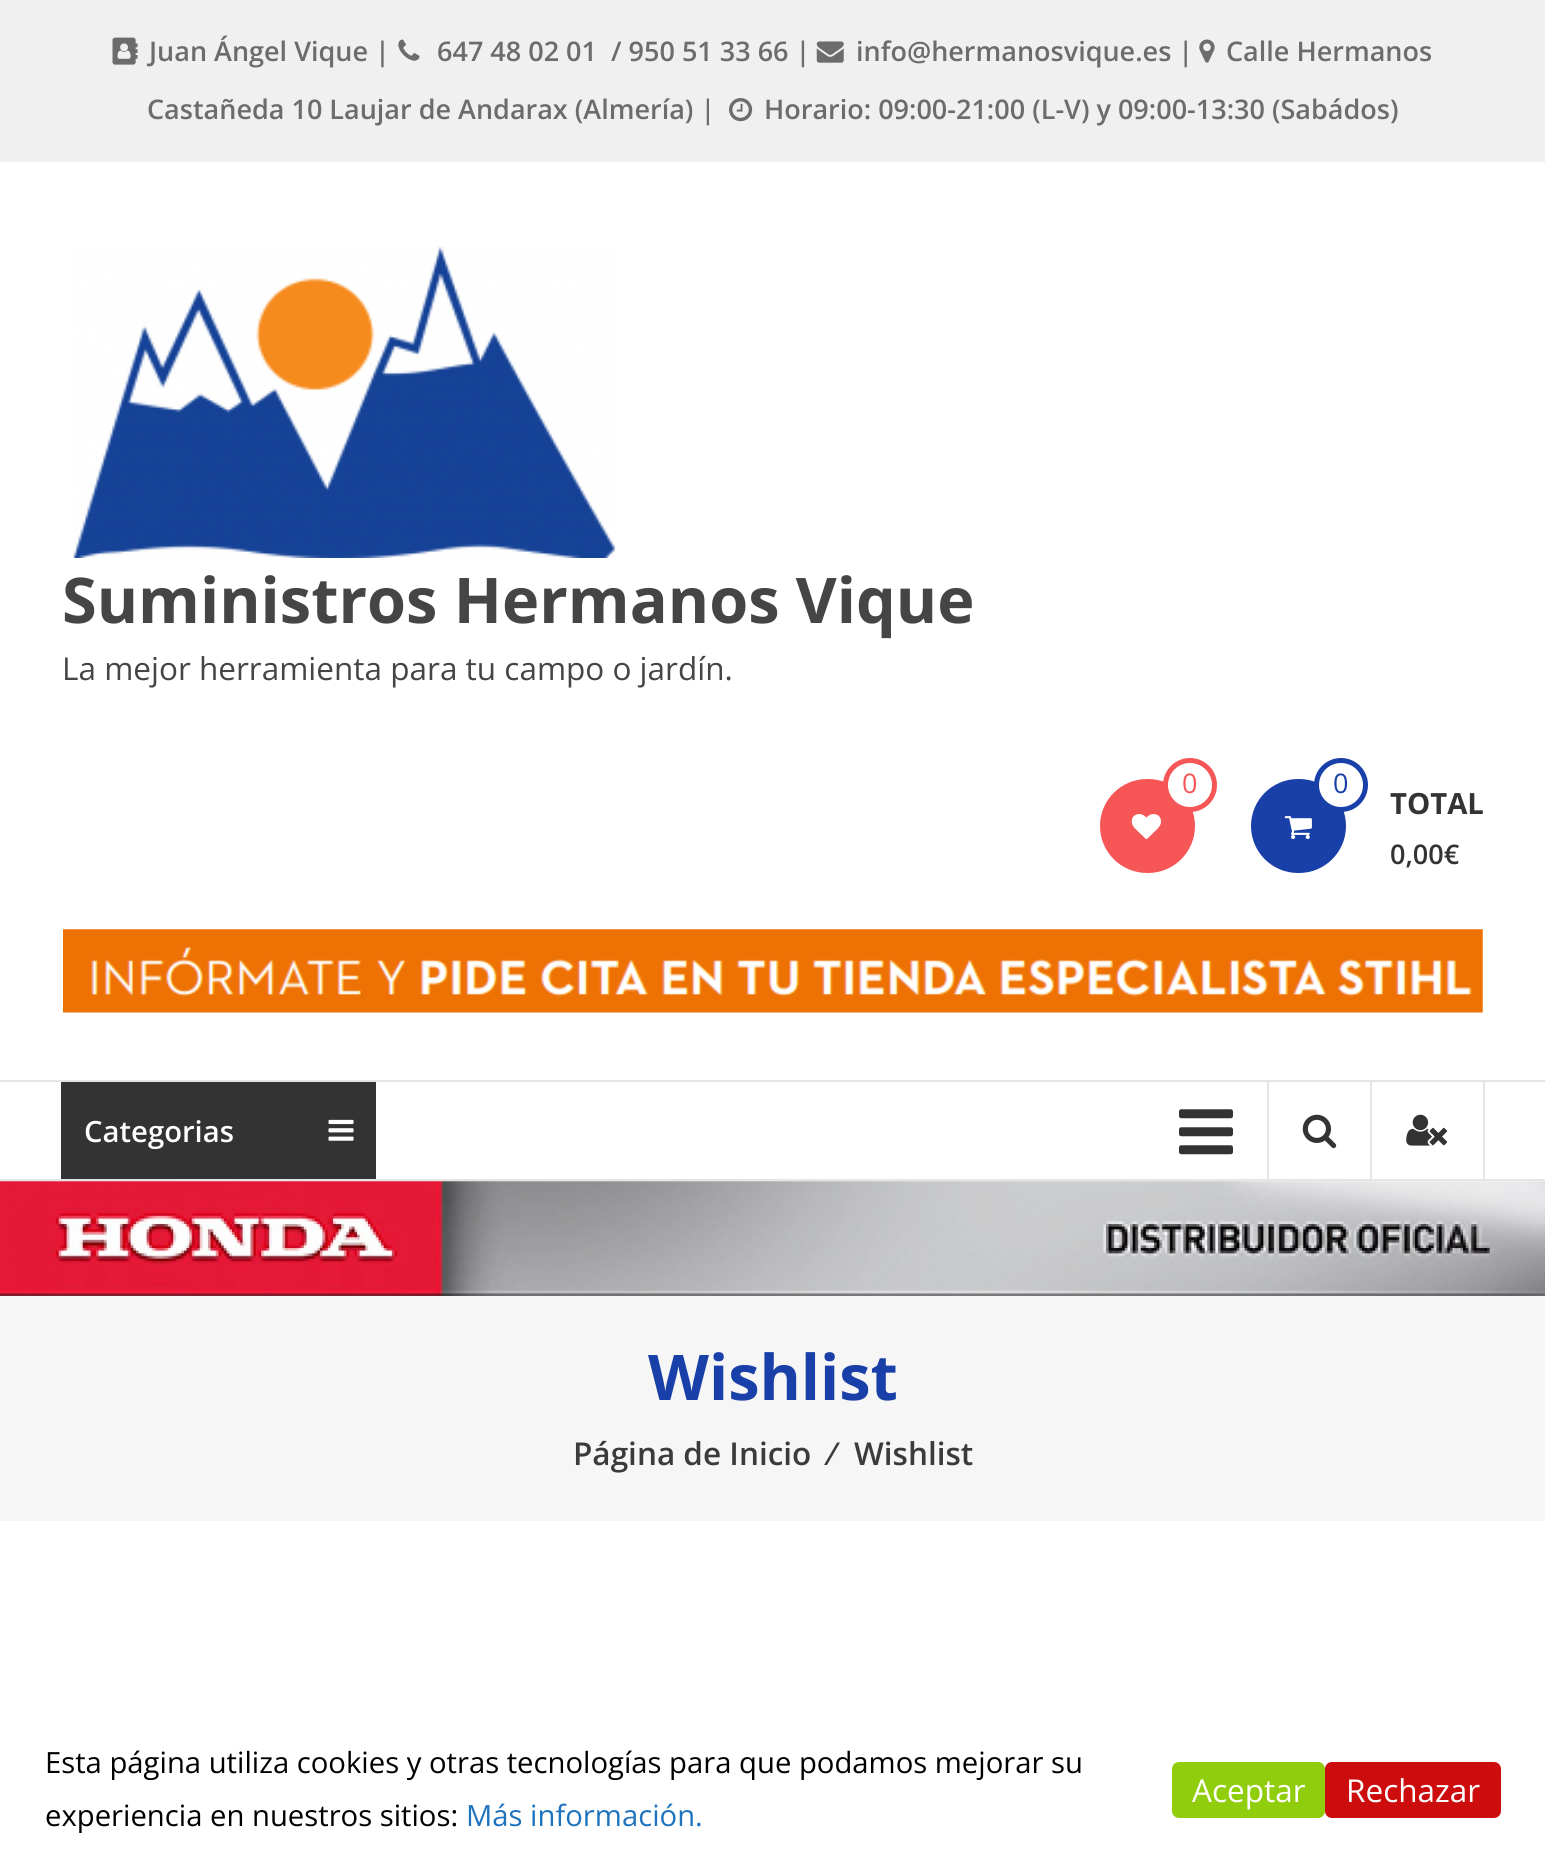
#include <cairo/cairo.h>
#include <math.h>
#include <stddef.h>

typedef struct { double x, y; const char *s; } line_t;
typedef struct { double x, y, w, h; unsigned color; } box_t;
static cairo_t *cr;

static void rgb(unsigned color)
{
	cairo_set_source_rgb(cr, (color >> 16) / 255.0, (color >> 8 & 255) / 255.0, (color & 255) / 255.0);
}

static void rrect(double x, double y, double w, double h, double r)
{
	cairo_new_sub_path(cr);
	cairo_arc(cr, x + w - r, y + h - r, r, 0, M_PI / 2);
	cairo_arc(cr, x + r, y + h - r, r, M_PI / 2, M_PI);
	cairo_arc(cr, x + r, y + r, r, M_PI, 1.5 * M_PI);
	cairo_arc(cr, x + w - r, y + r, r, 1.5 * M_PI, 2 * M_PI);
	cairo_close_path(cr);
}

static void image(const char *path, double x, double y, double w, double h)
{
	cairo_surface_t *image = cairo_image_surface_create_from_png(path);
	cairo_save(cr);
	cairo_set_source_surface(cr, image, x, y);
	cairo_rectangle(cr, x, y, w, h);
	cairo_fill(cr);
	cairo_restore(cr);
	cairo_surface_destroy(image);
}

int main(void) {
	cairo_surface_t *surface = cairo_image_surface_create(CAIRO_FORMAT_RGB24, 1545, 1875);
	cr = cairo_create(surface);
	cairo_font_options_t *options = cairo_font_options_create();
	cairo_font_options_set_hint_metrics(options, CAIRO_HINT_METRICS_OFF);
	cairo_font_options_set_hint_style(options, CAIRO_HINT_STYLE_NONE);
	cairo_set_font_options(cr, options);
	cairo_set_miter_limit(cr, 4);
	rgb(0xffffff);
	cairo_paint(cr);
	rgb(0xf0f0f0);
	cairo_rectangle(cr, 0, 0, 1545, 162);
	cairo_fill(cr);
	image("img/1.png", 112, 37, 26, 28);
	image("img/2.png", 398, 39, 22, 22);
	image("img/3.png", 816, 41, 28, 22);
	image("img/4.png", 1199, 39, 16, 24);
	image("img/5.png", 729, 98, 24, 24);
	image("img/6.png", 73, 247, 544, 311);
	rgb(0xf65656);
	rrect(1100, 779, 95, 94, 47);
	cairo_fill(cr);
	rgb(0xffffff);
	cairo_arc(cr, 1190, 785, 24.5, 0, 2 * M_PI);
	cairo_fill_preserve(cr);
	rgb(0xf65656);
	cairo_set_line_width(cr, 5);
	cairo_stroke(cr);
	image("img/7.png", 1131, 814, 30, 26);
	rgb(0x193fa8);
	rrect(1251, 779, 95, 94, 47);
	cairo_fill(cr);
	rgb(0xffffff);
	cairo_arc(cr, 1341, 785, 24.5, 0, 2 * M_PI);
	cairo_fill_preserve(cr);
	rgb(0x193fa8);
	cairo_stroke(cr);
	image("img/8.png", 1284, 816, 28, 24);
	image("img/9.png", 63, 929, 1420, 84);
	{
		static const box_t items[] = {
			{0, 1080, 1545, 2, 0xe5e5e5},
			{0, 1179, 1545, 2, 0xe5e5e5},
			{61, 1082, 315, 97, 0x333333},
		};
		for (size_t i = 0; i < sizeof items / sizeof *items; i++) {
			rgb(items[i].color);
			cairo_rectangle(cr, items[i].x, items[i].y, items[i].w, items[i].h);
			cairo_fill(cr);
		}
	}
	image("img/10.png", 328, 1119, 26, 22);
	image("img/11.png", 1179, 1109, 54, 46);
	rgb(0xe5e5e5);
	cairo_rectangle(cr, 1267, 1082, 2, 97);
	cairo_fill(cr);
	image("img/12.png", 1302, 1114, 35, 35);
	cairo_rectangle(cr, 1483, 1082, 2, 97);
	cairo_fill(cr);
	cairo_rectangle(cr, 1370, 1082, 2, 97);
	cairo_fill(cr);
	image("img/13.png", 1406, 1114, 42, 32);
	image("img/14.png", 0, 1181, 1545, 115);
	rgb(0xf6f6f6);
	cairo_rectangle(cr, 0, 1296, 1545, 225);
	cairo_fill(cr);
	rgb(0x90cd0d);
	rrect(1172, 1762, 153, 56, 7);
	cairo_fill(cr);
	rgb(0xcd0d0d);
	rrect(1325, 1762, 176, 56, 7);
	cairo_fill(cr);
	cairo_select_font_face(cr, "Open Sans SemiBold", CAIRO_FONT_SLANT_NORMAL, CAIRO_FONT_WEIGHT_NORMAL);
	cairo_set_font_size(cr, 27);
	rgb(0x6d6c6c);
	{
		static const line_t items[] = {
			{149, 61, "Juan Ángel Vique |"},
			{437, 61, "647 48 02 01  / 950 51 33 66 |"},
			{856, 61, "info@hermanosvique.es |"},
			{1226, 61, "Calle Hermanos"},
			{147, 119, "Castañeda 10 Laujar de Andarax (Almería) |"},
			{764, 119, "Horario: 09:00-21:00 (L-V) y 09:00-13:30 (Sabádos)"},
		};
		for (size_t i = 0; i < sizeof items / sizeof *items; i++) {
			cairo_move_to(cr, items[i].x, items[i].y);
			cairo_show_text(cr, items[i].s);
		}
	}
	cairo_select_font_face(cr, "Open Sans", CAIRO_FONT_SLANT_NORMAL, CAIRO_FONT_WEIGHT_BOLD);
	cairo_set_font_size(cr, 63);
	rgb(0x454545);
	cairo_move_to(cr, 62, 623);
	cairo_show_text(cr, "Suministros Hermanos Vique");
	cairo_select_font_face(cr, "Open Sans", CAIRO_FONT_SLANT_NORMAL, CAIRO_FONT_WEIGHT_NORMAL);
	cairo_set_font_size(cr, 31.5);
	cairo_move_to(cr, 62, 680);
	cairo_show_text(cr, "La mejor herramienta para tu campo o jardín.");
	cairo_set_font_size(cr, 27);
	rgb(0xf65656);
	cairo_move_to(cr, 1182, 793);
	cairo_show_text(cr, "0");
	rgb(0x193fa8);
	cairo_move_to(cr, 1333, 793);
	cairo_show_text(cr, "0");
	cairo_select_font_face(cr, "Open Sans", CAIRO_FONT_SLANT_NORMAL, CAIRO_FONT_WEIGHT_BOLD);
	cairo_set_font_size(cr, 29.25);
	rgb(0x333333);
	cairo_move_to(cr, 1390, 814);
	cairo_show_text(cr, "TOTAL");
	cairo_select_font_face(cr, "Open Sans SemiBold", CAIRO_FONT_SLANT_NORMAL, CAIRO_FONT_WEIGHT_NORMAL);
	cairo_set_font_size(cr, 27);
	cairo_move_to(cr, 1390, 864);
	cairo_show_text(cr, "0,00€");
	cairo_set_font_size(cr, 29.25);
	rgb(0xffffff);
	cairo_move_to(cr, 84, 1142);
	cairo_show_text(cr, "Categorias");
	cairo_select_font_face(cr, "Open Sans", CAIRO_FONT_SLANT_NORMAL, CAIRO_FONT_WEIGHT_BOLD);
	cairo_set_font_size(cr, 63);
	rgb(0x193fa8);
	cairo_move_to(cr, 648, 1400);
	cairo_show_text(cr, "Wishlist");
	cairo_select_font_face(cr, "Open Sans SemiBold", CAIRO_FONT_SLANT_NORMAL, CAIRO_FONT_WEIGHT_NORMAL);
	cairo_set_font_size(cr, 31.5);
	rgb(0x3b3b3b);
	{
		static const line_t items[] = {
			{573, 1465, "Página de Inicio"},
			{830, 1465, "⁄"},
			{854, 1465, "Wishlist"},
		};
		for (size_t i = 0; i < sizeof items / sizeof *items; i++) {
			cairo_move_to(cr, items[i].x, items[i].y);
			cairo_show_text(cr, items[i].s);
		}
	}
	cairo_select_font_face(cr, "Open Sans", CAIRO_FONT_SLANT_NORMAL, CAIRO_FONT_WEIGHT_NORMAL);
	cairo_set_font_size(cr, 29.25);
	rgb(0x000000);
	cairo_move_to(cr, 45, 1773);
	cairo_show_text(cr, "Esta página utiliza cookies y otras tecnologías para que podamos mejorar su");
	cairo_move_to(cr, 45, 1826);
	cairo_show_text(cr, "experiencia en nuestros sitios:");
	rgb(0x1e73be);
	cairo_move_to(cr, 466, 1826);
	cairo_show_text(cr, "Más información.");
	cairo_set_font_size(cr, 31.5);
	rgb(0xffffff);
	cairo_move_to(cr, 1192, 1802);
	cairo_show_text(cr, "Aceptar");
	cairo_move_to(cr, 1346, 1802);
	cairo_show_text(cr, "Rechazar");
	cairo_surface_write_to_png(surface, "page.png");
	cairo_font_options_destroy(options);
	cairo_destroy(cr);
	cairo_surface_destroy(surface);
	return 0;
}
